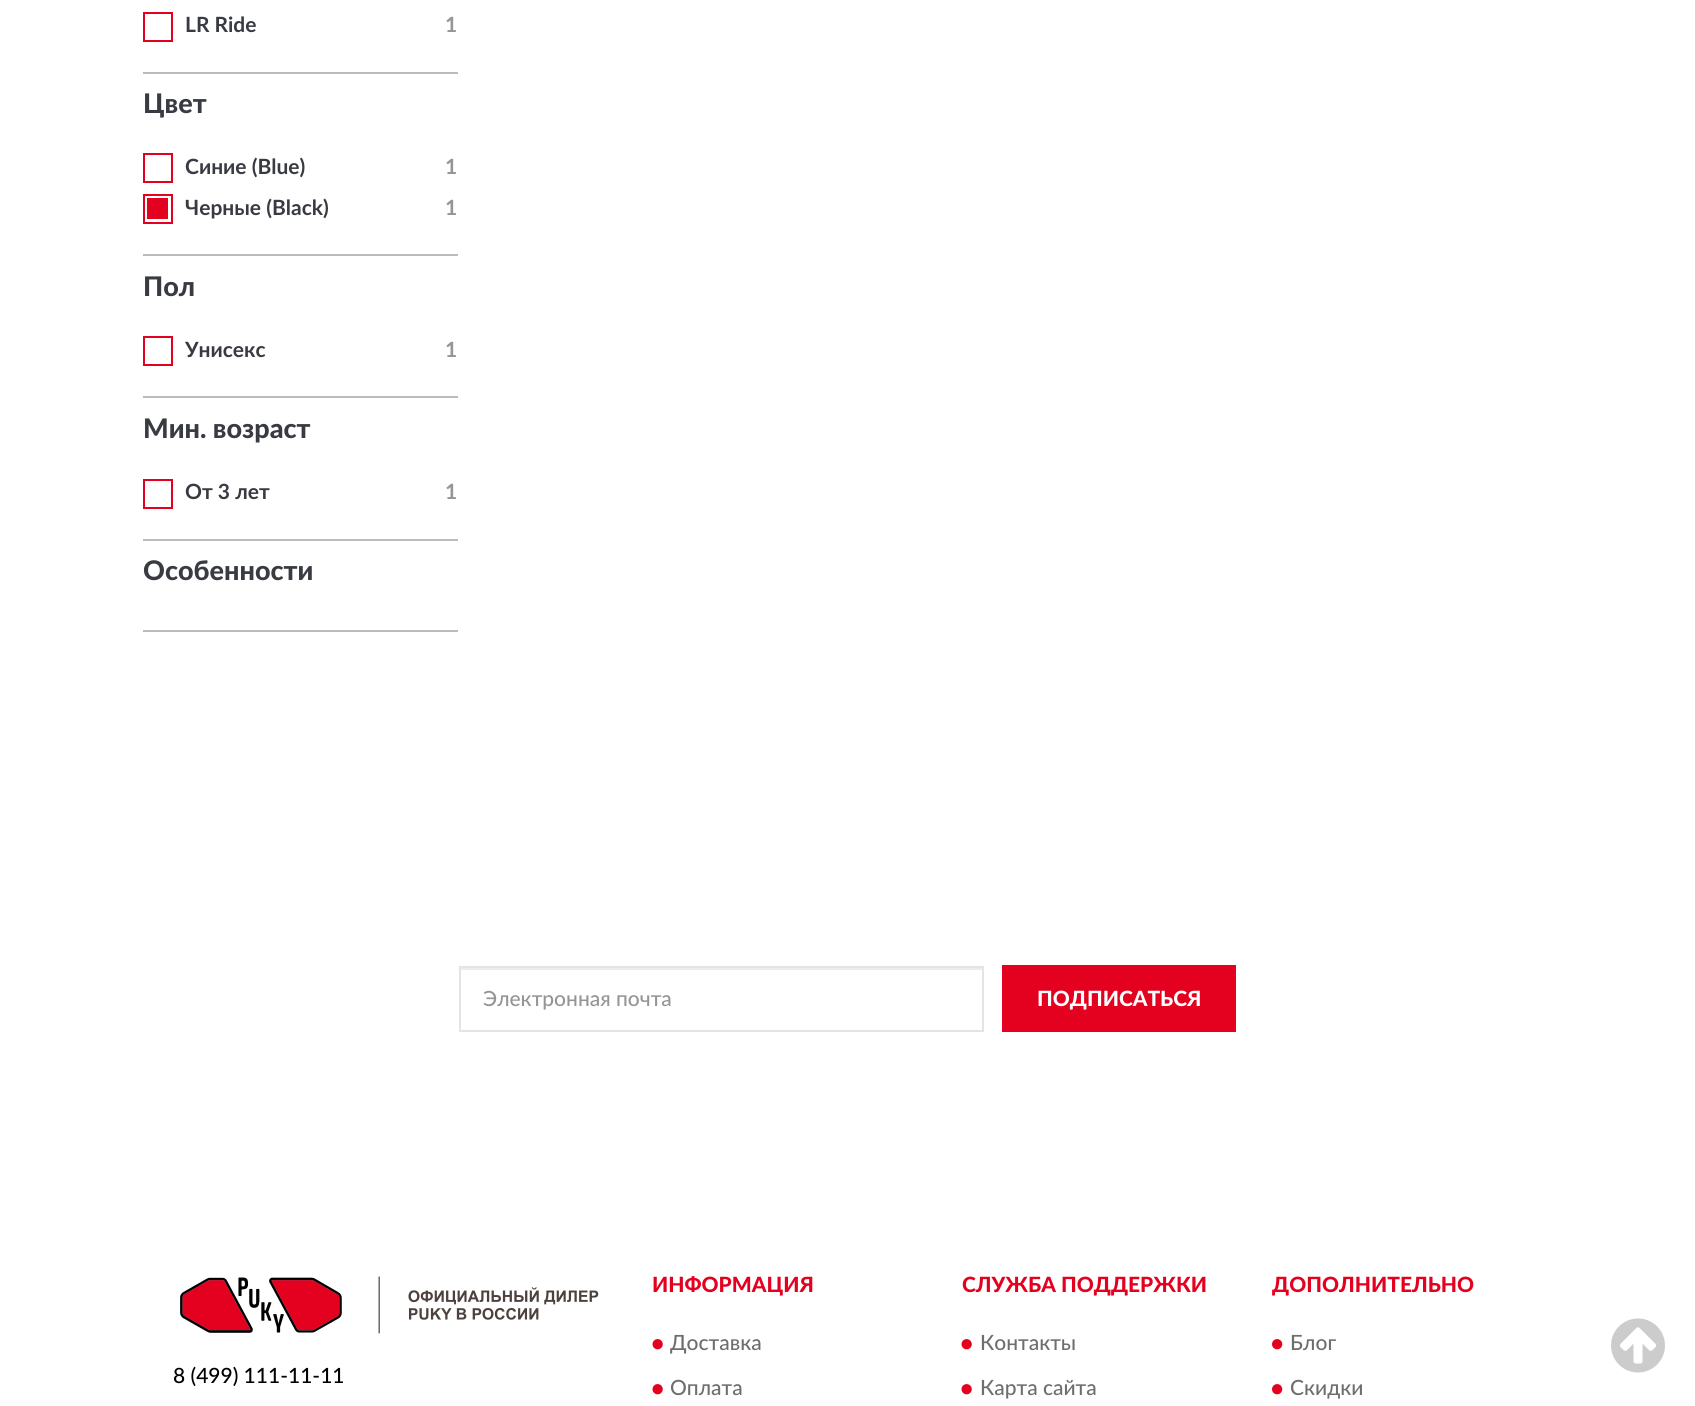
#include <cairo/cairo.h>
#include <math.h>
#include <stddef.h>

static cairo_t *cr;

static void rgb(unsigned color)
{
	cairo_set_source_rgb(cr, (color >> 16) / 255.0, (color >> 8 & 255) / 255.0, (color & 255) / 255.0);
}

static void image(const char *path, double x, double y, double w, double h)
{
	cairo_surface_t *image = cairo_image_surface_create_from_png(path);
	cairo_save(cr);
	cairo_set_source_surface(cr, image, x, y);
	cairo_rectangle(cr, x, y, w, h);
	cairo_fill(cr);
	cairo_restore(cr);
	cairo_surface_destroy(image);
}

int main(void) {
	cairo_surface_t *surface = cairo_image_surface_create(CAIRO_FORMAT_RGB24, 1695, 1406);
	cr = cairo_create(surface);
	cairo_font_options_t *options = cairo_font_options_create();
	cairo_font_options_set_hint_metrics(options, CAIRO_HINT_METRICS_OFF);
	cairo_font_options_set_hint_style(options, CAIRO_HINT_STYLE_NONE);
	cairo_set_font_options(cr, options);
	cairo_set_miter_limit(cr, 4);
	rgb(0xffffff);
	cairo_paint(cr);
	rgb(0xbabbbd);
	cairo_rectangle(cr, 143, 630, 315, 2);
	cairo_fill(cr);
	cairo_rectangle(cr, 144, 13, 28, 28);
	rgb(0xe4001f);
	cairo_stroke(cr);
	rgb(0xbabbbd);
	cairo_rectangle(cr, 143, 72, 315, 2);
	cairo_fill(cr);
	cairo_rectangle(cr, 144, 154, 28, 28);
	rgb(0xe4001f);
	cairo_stroke(cr);
	cairo_rectangle(cr, 144, 195, 28, 28);
	cairo_stroke(cr);
	cairo_rectangle(cr, 147, 198, 21, 21);
	cairo_fill(cr);
	rgb(0xbabbbd);
	cairo_rectangle(cr, 143, 254, 315, 2);
	cairo_fill(cr);
	cairo_rectangle(cr, 144, 337, 28, 28);
	rgb(0xe4001f);
	cairo_stroke(cr);
	rgb(0xbabbbd);
	cairo_rectangle(cr, 143, 396, 315, 2);
	cairo_fill(cr);
	cairo_rectangle(cr, 144, 480, 28, 28);
	rgb(0xe4001f);
	cairo_stroke(cr);
	rgb(0xbabbbd);
	cairo_rectangle(cr, 143, 539, 315, 2);
	cairo_fill(cr);
	rgb(0xececec);
	cairo_rectangle(cr, 461, 968, 522, 2);
	cairo_fill(cr);
	cairo_rectangle(cr, 460, 967, 523, 64);
	rgb(0xe4e4e4);
	cairo_stroke(cr);
	rgb(0xe4001f);
	cairo_rectangle(cr, 1002, 965, 234, 67);
	cairo_fill(cr);
	image("img/1.png", 180, 1276, 419, 58);
	image("img/2.png", 652, 1339, 11, 11);
	image("img/2.png", 652, 1384, 11, 11);
	image("img/2.png", 961, 1339, 11, 11);
	image("img/2.png", 961, 1384, 11, 11);
	image("img/3.png", 1272, 1339, 11, 11);
	image("img/3.png", 1272, 1384, 11, 11);
	image("img/4.png", 1611, 1318, 54, 55);
	cairo_select_font_face(cr, "Lato", CAIRO_FONT_SLANT_NORMAL, CAIRO_FONT_WEIGHT_BOLD);
	cairo_set_font_size(cr, 21);
	rgb(0x393b42);
	cairo_move_to(cr, 185, 32);
	cairo_show_text(cr, "LR Ride");
	rgb(0x969595);
	cairo_move_to(cr, 445, 32);
	cairo_show_text(cr, "1");
	cairo_select_font_face(cr, "Lato Black", CAIRO_FONT_SLANT_NORMAL, CAIRO_FONT_WEIGHT_NORMAL);
	cairo_set_font_size(cr, 27);
	rgb(0x393b42);
	cairo_move_to(cr, 143, 113);
	cairo_show_text(cr, "Цвет");
	cairo_select_font_face(cr, "Lato", CAIRO_FONT_SLANT_NORMAL, CAIRO_FONT_WEIGHT_BOLD);
	cairo_set_font_size(cr, 21);
	cairo_move_to(cr, 185, 174);
	cairo_show_text(cr, "Синие (Blue)");
	rgb(0x969595);
	cairo_move_to(cr, 445, 174);
	cairo_show_text(cr, "1");
	rgb(0x393b42);
	cairo_move_to(cr, 185, 215);
	cairo_show_text(cr, "Черные (Black)");
	rgb(0x969595);
	cairo_move_to(cr, 445, 215);
	cairo_show_text(cr, "1");
	cairo_select_font_face(cr, "Lato Black", CAIRO_FONT_SLANT_NORMAL, CAIRO_FONT_WEIGHT_NORMAL);
	cairo_set_font_size(cr, 27);
	rgb(0x393b42);
	cairo_move_to(cr, 143, 296);
	cairo_show_text(cr, "Пол");
	cairo_select_font_face(cr, "Lato", CAIRO_FONT_SLANT_NORMAL, CAIRO_FONT_WEIGHT_BOLD);
	cairo_set_font_size(cr, 21);
	cairo_move_to(cr, 185, 357);
	cairo_show_text(cr, "Унисекс");
	rgb(0x969595);
	cairo_move_to(cr, 445, 357);
	cairo_show_text(cr, "1");
	cairo_select_font_face(cr, "Lato Black", CAIRO_FONT_SLANT_NORMAL, CAIRO_FONT_WEIGHT_NORMAL);
	cairo_set_font_size(cr, 27);
	rgb(0x393b42);
	cairo_move_to(cr, 143, 438);
	cairo_show_text(cr, "Мин. возраст");
	cairo_select_font_face(cr, "Lato", CAIRO_FONT_SLANT_NORMAL, CAIRO_FONT_WEIGHT_BOLD);
	cairo_set_font_size(cr, 21);
	cairo_move_to(cr, 185, 499);
	cairo_show_text(cr, "От 3 лет");
	rgb(0x969595);
	cairo_move_to(cr, 445, 499);
	cairo_show_text(cr, "1");
	cairo_select_font_face(cr, "Lato Black", CAIRO_FONT_SLANT_NORMAL, CAIRO_FONT_WEIGHT_NORMAL);
	cairo_set_font_size(cr, 27);
	rgb(0x393b42);
	cairo_move_to(cr, 143, 580);
	cairo_show_text(cr, "Особенности");
	cairo_select_font_face(cr, "Lato Medium", CAIRO_FONT_SLANT_NORMAL, CAIRO_FONT_WEIGHT_NORMAL);
	cairo_set_font_size(cr, 21);
	rgb(0x969595);
	cairo_move_to(cr, 483, 1006);
	cairo_show_text(cr, "Электронная почта");
	cairo_select_font_face(cr, "Lato Black", CAIRO_FONT_SLANT_NORMAL, CAIRO_FONT_WEIGHT_NORMAL);
	rgb(0xffffff);
	cairo_move_to(cr, 1037, 1006);
	cairo_show_text(cr, "ПОДПИСАТЬСЯ");
	cairo_select_font_face(cr, "Lato Medium", CAIRO_FONT_SLANT_NORMAL, CAIRO_FONT_WEIGHT_NORMAL);
	rgb(0x000000);
	cairo_move_to(cr, 173, 1383);
	cairo_show_text(cr, "8 (499) 111-11-11");
	cairo_select_font_face(cr, "Lato Black", CAIRO_FONT_SLANT_NORMAL, CAIRO_FONT_WEIGHT_NORMAL);
	rgb(0xe4001f);
	cairo_move_to(cr, 652, 1292);
	cairo_show_text(cr, "ИНФОРМАЦИЯ");
	cairo_select_font_face(cr, "Lato Medium", CAIRO_FONT_SLANT_NORMAL, CAIRO_FONT_WEIGHT_NORMAL);
	rgb(0x6e6e6e);
	cairo_move_to(cr, 670, 1350);
	cairo_show_text(cr, "Доставка");
	cairo_move_to(cr, 670, 1395);
	cairo_show_text(cr, "Оплата");
	cairo_select_font_face(cr, "Lato Black", CAIRO_FONT_SLANT_NORMAL, CAIRO_FONT_WEIGHT_NORMAL);
	rgb(0xe4001f);
	cairo_move_to(cr, 962, 1292);
	cairo_show_text(cr, "СЛУЖБА ПОДДЕРЖКИ");
	cairo_select_font_face(cr, "Lato Medium", CAIRO_FONT_SLANT_NORMAL, CAIRO_FONT_WEIGHT_NORMAL);
	rgb(0x6e6e6e);
	cairo_move_to(cr, 980, 1350);
	cairo_show_text(cr, "Контакты");
	cairo_move_to(cr, 980, 1395);
	cairo_show_text(cr, "Карта сайта");
	cairo_select_font_face(cr, "Lato Black", CAIRO_FONT_SLANT_NORMAL, CAIRO_FONT_WEIGHT_NORMAL);
	rgb(0xe4001f);
	cairo_move_to(cr, 1272, 1292);
	cairo_show_text(cr, "ДОПОЛНИТЕЛЬНО");
	cairo_select_font_face(cr, "Lato Medium", CAIRO_FONT_SLANT_NORMAL, CAIRO_FONT_WEIGHT_NORMAL);
	rgb(0x6e6e6e);
	cairo_move_to(cr, 1290, 1350);
	cairo_show_text(cr, "Блог");
	cairo_move_to(cr, 1290, 1395);
	cairo_show_text(cr, "Скидки");
	cairo_surface_write_to_png(surface, "page.png");
	cairo_font_options_destroy(options);
	cairo_destroy(cr);
	cairo_surface_destroy(surface);
	return 0;
}
